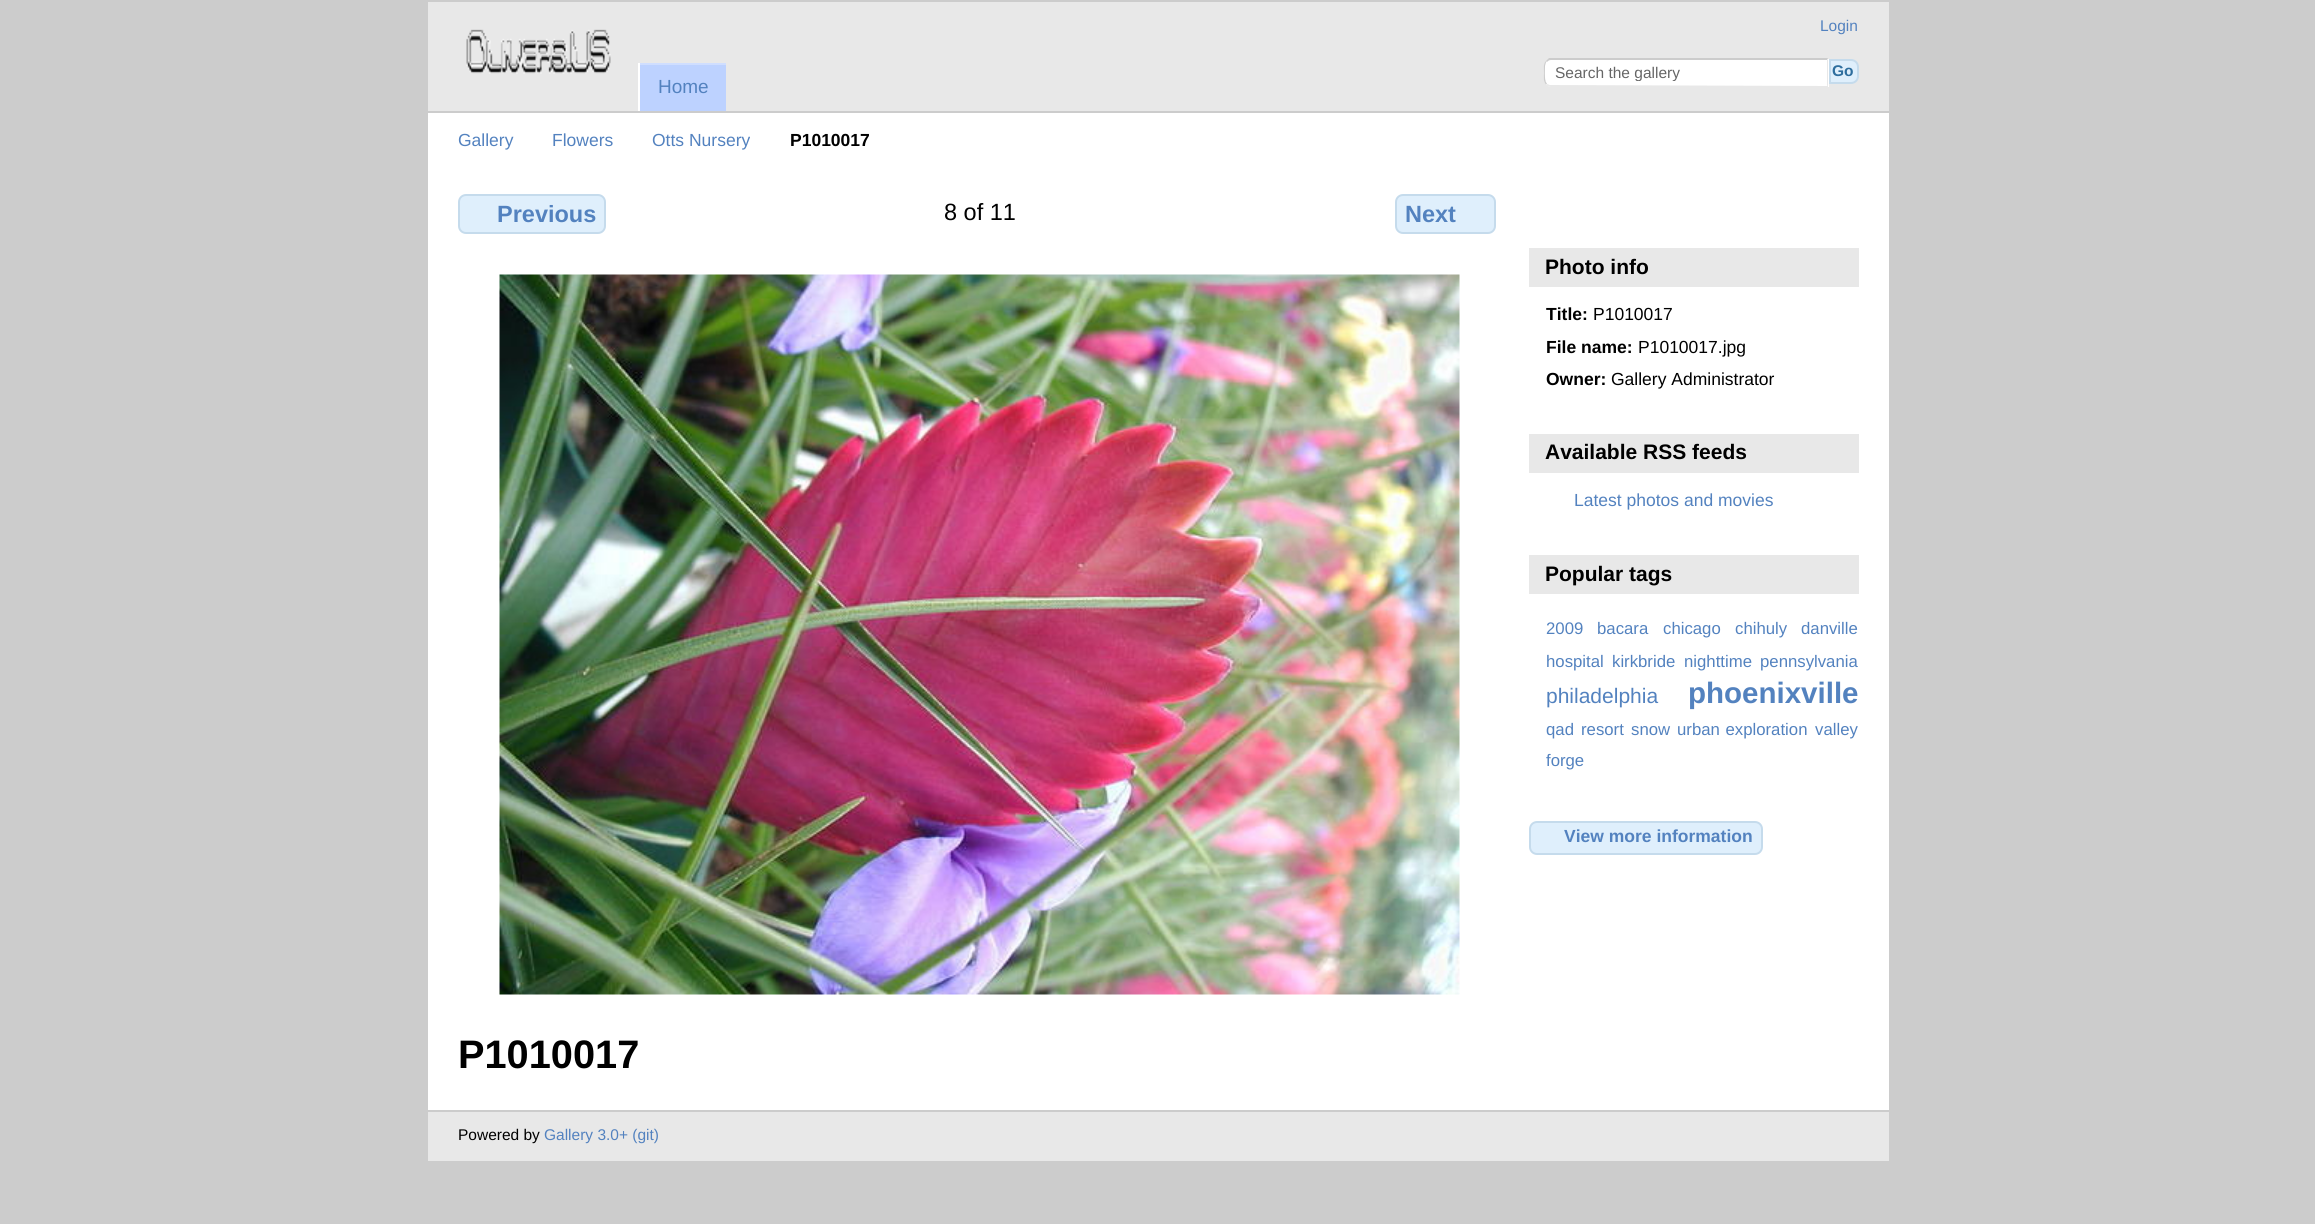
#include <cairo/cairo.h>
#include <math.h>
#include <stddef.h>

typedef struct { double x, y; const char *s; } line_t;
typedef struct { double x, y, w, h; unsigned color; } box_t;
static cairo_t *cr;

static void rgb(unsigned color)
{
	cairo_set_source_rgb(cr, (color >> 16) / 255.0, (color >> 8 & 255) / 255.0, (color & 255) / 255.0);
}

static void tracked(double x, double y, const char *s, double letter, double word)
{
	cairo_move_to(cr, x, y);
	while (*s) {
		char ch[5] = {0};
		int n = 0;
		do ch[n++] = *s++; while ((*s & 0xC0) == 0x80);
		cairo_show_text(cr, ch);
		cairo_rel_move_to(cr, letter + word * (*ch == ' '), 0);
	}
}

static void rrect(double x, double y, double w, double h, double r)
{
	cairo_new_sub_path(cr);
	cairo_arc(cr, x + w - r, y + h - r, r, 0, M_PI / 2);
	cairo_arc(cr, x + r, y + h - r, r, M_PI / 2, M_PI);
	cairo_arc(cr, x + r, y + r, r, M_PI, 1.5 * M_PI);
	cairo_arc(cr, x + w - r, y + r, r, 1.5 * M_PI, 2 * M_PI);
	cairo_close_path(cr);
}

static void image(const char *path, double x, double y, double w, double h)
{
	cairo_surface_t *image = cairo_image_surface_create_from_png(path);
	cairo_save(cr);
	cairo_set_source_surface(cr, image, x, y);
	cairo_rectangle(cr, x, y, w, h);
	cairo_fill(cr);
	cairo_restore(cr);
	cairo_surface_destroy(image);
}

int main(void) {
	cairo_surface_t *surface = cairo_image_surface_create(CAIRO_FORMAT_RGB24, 2315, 1224);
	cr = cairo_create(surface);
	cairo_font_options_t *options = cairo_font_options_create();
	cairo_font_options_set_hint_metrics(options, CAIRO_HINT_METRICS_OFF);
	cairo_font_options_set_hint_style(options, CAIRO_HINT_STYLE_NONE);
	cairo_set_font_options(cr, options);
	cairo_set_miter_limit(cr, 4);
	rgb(0xcccccc);
	cairo_paint(cr);
	rgb(0xffffff);
	cairo_rectangle(cr, 428, 113, 1461, 997);
	cairo_fill(cr);
	rgb(0xe8e8e8);
	cairo_rectangle(cr, 428, 2, 1461, 109);
	cairo_fill(cr);
	image("img/1.png", 466, 29, 145, 45);
	rgb(0xffffff);
	cairo_new_path(cr);
	cairo_move_to(cr, 1552, 59);
	cairo_line_to(cr, 1829, 59);
	cairo_line_to(cr, 1829, 87);
	cairo_line_to(cr, 1552, 87);
	cairo_curve_to(cr, 1547.5, 87, 1544, 83.5, 1544, 79);
	cairo_line_to(cr, 1544, 67);
	cairo_curve_to(cr, 1544, 62.5, 1547.5, 59, 1552, 59);
	cairo_close_path(cr);
	cairo_fill(cr);
	rgb(0xcccccc);
	cairo_new_path(cr);
	cairo_move_to(cr, 1551, 60);
	cairo_curve_to(cr, 1549, 60, 1548, 61, 1547, 62);
	cairo_line_to(cr, 1546, 61);
	cairo_line_to(cr, 1549, 58);
	cairo_line_to(cr, 1828, 58);
	cairo_line_to(cr, 1827, 60);
	cairo_close_path(cr);
	cairo_fill(cr);
	rgb(0xe8e8e8);
	cairo_new_path(cr);
	cairo_move_to(cr, 1828, 59);
	cairo_line_to(cr, 1828, 86.5);
	cairo_line_to(cr, 1827, 85.5);
	cairo_line_to(cr, 1827, 60);
	cairo_close_path(cr);
	cairo_fill(cr);
	cairo_new_path(cr);
	cairo_move_to(cr, 1551, 87);
	cairo_line_to(cr, 1828, 87);
	cairo_line_to(cr, 1828, 86);
	cairo_line_to(cr, 1827, 86);
	cairo_line_to(cr, 1550, 85);
	cairo_curve_to(cr, 1549, 85, 1548, 84, 1547, 84);
	cairo_line_to(cr, 1546, 85);
	cairo_curve_to(cr, 1547, 86, 1549, 87, 1551, 87);
	cairo_close_path(cr);
	cairo_fill(cr);
	rgb(0xcccccc);
	cairo_new_path(cr);
	cairo_move_to(cr, 1546, 84.5);
	cairo_curve_to(cr, 1543, 81.5, 1544, 76.5, 1544, 73);
	cairo_curve_to(cr, 1544, 69, 1543, 64, 1546, 61);
	cairo_line_to(cr, 1546.5, 61.5);
	cairo_curve_to(cr, 1545.5, 63, 1545.5, 64.5, 1545, 66);
	cairo_curve_to(cr, 1545, 68.5, 1544.5, 78, 1545.5, 80.5);
	cairo_curve_to(cr, 1545.5, 81.5, 1546, 82.5, 1547, 83.5);
	cairo_close_path(cr);
	cairo_fill(cr);
	rgb(0xdfeffc);
	cairo_new_path(cr);
	cairo_move_to(cr, 1830, 60);
	cairo_line_to(cr, 1851, 60);
	cairo_curve_to(cr, 1855, 60, 1858, 63, 1858, 67);
	cairo_line_to(cr, 1858, 76);
	cairo_curve_to(cr, 1858, 80, 1855, 83, 1851, 83);
	cairo_line_to(cr, 1830, 83);
	cairo_close_path(cr);
	cairo_fill_preserve(cr);
	rgb(0xc5dbec);
	cairo_stroke(cr);
	{
		static const box_t items[] = {
			{640, 65, 86, 46, 0xbdd2ff},
			{638, 63, 88, 2, 0xcfdeff},
			{638, 63, 2, 48, 0xffffff},
		};
		for (size_t i = 0; i < sizeof items / sizeof *items; i++) {
			rgb(items[i].color);
			cairo_rectangle(cr, items[i].x, items[i].y, items[i].w, items[i].h);
			cairo_fill(cr);
		}
	}
	rgb(0xdfeffc);
	rrect(459, 195, 146, 38, 7);
	cairo_fill_preserve(cr);
	rgb(0xc5dbec);
	cairo_stroke(cr);
	rgb(0xdfeffc);
	rrect(1396, 195, 99, 38, 7);
	cairo_fill_preserve(cr);
	rgb(0xc5dbec);
	cairo_stroke(cr);
	image("img/2.png", 499, 274, 961, 721);
	{
		static const box_t items[] = {
			{1529, 248, 330, 39, 0xe8e8e8},
			{1529, 434, 330, 39, 0xe8e8e8},
			{1529, 555, 330, 39, 0xe8e8e8},
		};
		for (size_t i = 0; i < sizeof items / sizeof *items; i++) {
			rgb(items[i].color);
			cairo_rectangle(cr, items[i].x, items[i].y, items[i].w, items[i].h);
			cairo_fill(cr);
		}
	}
	rgb(0xdfeffc);
	rrect(1530, 822, 232, 32, 7);
	cairo_fill_preserve(cr);
	rgb(0xc5dbec);
	cairo_stroke(cr);
	rgb(0xe8e8e8);
	cairo_rectangle(cr, 428, 1112, 1461, 49);
	cairo_fill(cr);
	cairo_select_font_face(cr, "Liberation Sans", CAIRO_FONT_SLANT_NORMAL, CAIRO_FONT_WEIGHT_NORMAL);
	cairo_set_font_size(cr, 15.5);
	rgb(0x5382bf);
	cairo_move_to(cr, 1820, 31);
	cairo_show_text(cr, "Login");
	cairo_save(cr);
	cairo_rectangle(cr, 1554, 65, 263, 16);
	cairo_clip(cr);
	rgb(0x666666);
	cairo_move_to(cr, 1555, 78);
	cairo_show_text(cr, "Search the gallery");
	cairo_restore(cr);
	cairo_select_font_face(cr, "Liberation Sans", CAIRO_FONT_SLANT_NORMAL, CAIRO_FONT_WEIGHT_BOLD);
	rgb(0x2e6e9e);
	cairo_move_to(cr, 1832, 76);
	cairo_show_text(cr, "Go");
	cairo_select_font_face(cr, "Liberation Sans", CAIRO_FONT_SLANT_NORMAL, CAIRO_FONT_WEIGHT_NORMAL);
	cairo_set_font_size(cr, 19);
	rgb(0x5382bf);
	cairo_move_to(cr, 658, 93);
	cairo_show_text(cr, "Home");
	cairo_set_font_size(cr, 17.5);
	{
		static const line_t items[] = {
			{458, 146, "Gallery"},
			{552, 146, "Flowers"},
			{652, 146, "Otts Nursery"},
		};
		for (size_t i = 0; i < sizeof items / sizeof *items; i++) {
			cairo_move_to(cr, items[i].x, items[i].y);
			cairo_show_text(cr, items[i].s);
		}
	}
	cairo_select_font_face(cr, "Liberation Sans", CAIRO_FONT_SLANT_NORMAL, CAIRO_FONT_WEIGHT_BOLD);
	rgb(0x000000);
	cairo_move_to(cr, 790, 146);
	cairo_show_text(cr, "P1010017");
	cairo_set_font_size(cr, 23.5);
	rgb(0x5382bf);
	cairo_move_to(cr, 497, 222);
	cairo_show_text(cr, "Previous");
	cairo_select_font_face(cr, "Liberation Sans", CAIRO_FONT_SLANT_NORMAL, CAIRO_FONT_WEIGHT_NORMAL);
	rgb(0x000000);
	cairo_move_to(cr, 944, 220);
	cairo_show_text(cr, "8 of 11");
	cairo_select_font_face(cr, "Liberation Sans", CAIRO_FONT_SLANT_NORMAL, CAIRO_FONT_WEIGHT_BOLD);
	rgb(0x5382bf);
	cairo_move_to(cr, 1405, 222);
	cairo_show_text(cr, "Next");
	cairo_set_font_size(cr, 39.75);
	rgb(0x000000);
	cairo_move_to(cr, 458, 1068);
	cairo_show_text(cr, "P1010017");
	cairo_set_font_size(cr, 21);
	cairo_move_to(cr, 1545, 274);
	cairo_show_text(cr, "Photo info");
	cairo_set_font_size(cr, 17.5);
	cairo_move_to(cr, 1546, 320);
	cairo_show_text(cr, "Title:");
	cairo_select_font_face(cr, "Liberation Sans", CAIRO_FONT_SLANT_NORMAL, CAIRO_FONT_WEIGHT_NORMAL);
	cairo_move_to(cr, 1593, 320);
	cairo_show_text(cr, "P1010017");
	cairo_select_font_face(cr, "Liberation Sans", CAIRO_FONT_SLANT_NORMAL, CAIRO_FONT_WEIGHT_BOLD);
	cairo_move_to(cr, 1546, 353);
	cairo_show_text(cr, "File name:");
	cairo_select_font_face(cr, "Liberation Sans", CAIRO_FONT_SLANT_NORMAL, CAIRO_FONT_WEIGHT_NORMAL);
	cairo_move_to(cr, 1638, 353);
	cairo_show_text(cr, "P1010017.jpg");
	cairo_select_font_face(cr, "Liberation Sans", CAIRO_FONT_SLANT_NORMAL, CAIRO_FONT_WEIGHT_BOLD);
	cairo_move_to(cr, 1546, 385);
	cairo_show_text(cr, "Owner:");
	cairo_select_font_face(cr, "Liberation Sans", CAIRO_FONT_SLANT_NORMAL, CAIRO_FONT_WEIGHT_NORMAL);
	cairo_move_to(cr, 1611, 385);
	cairo_show_text(cr, "Gallery Administrator");
	cairo_select_font_face(cr, "Liberation Sans", CAIRO_FONT_SLANT_NORMAL, CAIRO_FONT_WEIGHT_BOLD);
	cairo_set_font_size(cr, 21);
	cairo_move_to(cr, 1545, 459);
	cairo_show_text(cr, "Available RSS feeds");
	cairo_select_font_face(cr, "Liberation Sans", CAIRO_FONT_SLANT_NORMAL, CAIRO_FONT_WEIGHT_NORMAL);
	cairo_set_font_size(cr, 17.5);
	rgb(0x5382bf);
	cairo_move_to(cr, 1574, 506);
	cairo_show_text(cr, "Latest photos and movies");
	cairo_select_font_face(cr, "Liberation Sans", CAIRO_FONT_SLANT_NORMAL, CAIRO_FONT_WEIGHT_BOLD);
	cairo_set_font_size(cr, 21);
	rgb(0x000000);
	cairo_move_to(cr, 1545, 581);
	cairo_show_text(cr, "Popular tags");
	cairo_select_font_face(cr, "Liberation Sans", CAIRO_FONT_SLANT_NORMAL, CAIRO_FONT_WEIGHT_NORMAL);
	cairo_set_font_size(cr, 16.75);
	rgb(0x5382bf);
	{
		static const line_t items[] = {
			{1546, 634, "2009"},
			{1597, 634, "bacara"},
			{1663, 634, "chicago"},
			{1735, 634, "chihuly"},
			{1801, 634, "danville"},
			{1546, 667, "hospital"},
			{1612, 667, "kirkbride"},
			{1684, 667, "nighttime"},
			{1760, 667, "pennsylvania"},
		};
		for (size_t i = 0; i < sizeof items / sizeof *items; i++) {
			cairo_move_to(cr, items[i].x, items[i].y);
			cairo_show_text(cr, items[i].s);
		}
	}
	cairo_set_font_size(cr, 21);
	cairo_move_to(cr, 1546, 703);
	cairo_show_text(cr, "philadelphia");
	cairo_select_font_face(cr, "Liberation Sans", CAIRO_FONT_SLANT_NORMAL, CAIRO_FONT_WEIGHT_BOLD);
	cairo_set_font_size(cr, 29.5);
	cairo_move_to(cr, 1688, 703);
	cairo_show_text(cr, "phoenixville");
	cairo_select_font_face(cr, "Liberation Sans", CAIRO_FONT_SLANT_NORMAL, CAIRO_FONT_WEIGHT_NORMAL);
	cairo_set_font_size(cr, 16.75);
	{
		static const line_t items[] = {
			{1546, 735, "qad"},
			{1581, 735, "resort"},
			{1631, 735, "snow"},
		};
		for (size_t i = 0; i < sizeof items / sizeof *items; i++) {
			cairo_move_to(cr, items[i].x, items[i].y);
			cairo_show_text(cr, items[i].s);
		}
	}
	tracked(1677, 735, "urban exploration", 0, 1);
	cairo_move_to(cr, 1815, 735);
	cairo_show_text(cr, "valley");
	cairo_move_to(cr, 1546, 766);
	cairo_show_text(cr, "forge");
	cairo_select_font_face(cr, "Liberation Sans", CAIRO_FONT_SLANT_NORMAL, CAIRO_FONT_WEIGHT_BOLD);
	cairo_set_font_size(cr, 17.5);
	cairo_move_to(cr, 1564, 842);
	cairo_show_text(cr, "View more information");
	cairo_select_font_face(cr, "Liberation Sans", CAIRO_FONT_SLANT_NORMAL, CAIRO_FONT_WEIGHT_NORMAL);
	cairo_set_font_size(cr, 15.5);
	rgb(0x000000);
	cairo_move_to(cr, 458, 1140);
	cairo_show_text(cr, "Powered by");
	rgb(0x5382bf);
	cairo_move_to(cr, 544, 1140);
	cairo_show_text(cr, "Gallery 3.0+ (git)");
	cairo_surface_write_to_png(surface, "page.png");
	cairo_font_options_destroy(options);
	cairo_destroy(cr);
	cairo_surface_destroy(surface);
	return 0;
}
